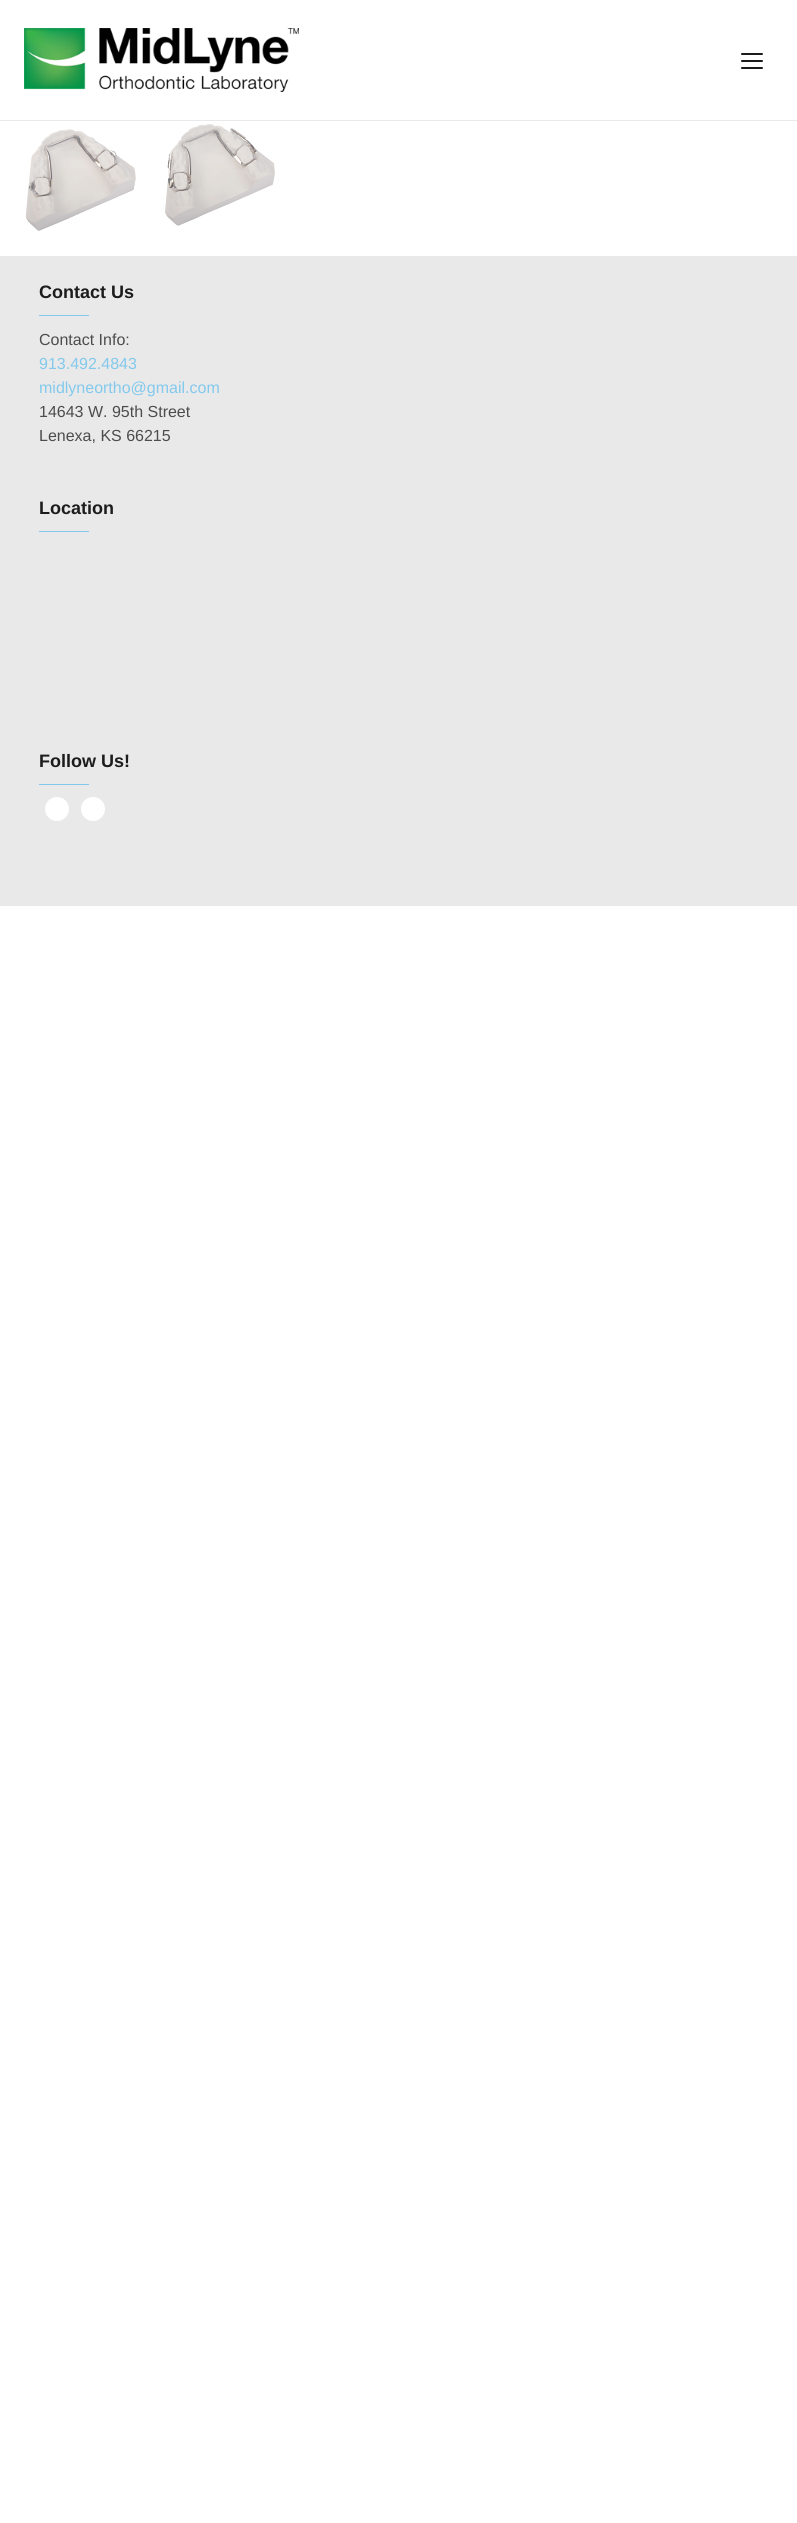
#include <cairo/cairo.h>
#include <math.h>
#include <stddef.h>

typedef struct { double x, y, w, h; unsigned color; } box_t;
static cairo_t *cr;

static void rgb(unsigned color)
{
	cairo_set_source_rgb(cr, (color >> 16) / 255.0, (color >> 8 & 255) / 255.0, (color & 255) / 255.0);
}

static void rrect(double x, double y, double w, double h, double r)
{
	cairo_new_sub_path(cr);
	cairo_arc(cr, x + w - r, y + h - r, r, 0, M_PI / 2);
	cairo_arc(cr, x + r, y + h - r, r, M_PI / 2, M_PI);
	cairo_arc(cr, x + r, y + r, r, M_PI, 1.5 * M_PI);
	cairo_arc(cr, x + w - r, y + r, r, 1.5 * M_PI, 2 * M_PI);
	cairo_close_path(cr);
}

static void soft_shadow(double x, double y, double w, double h, double r, double blur, double alpha)
{
	cairo_push_group_with_content(cr, CAIRO_CONTENT_ALPHA);
	cairo_set_operator(cr, CAIRO_OPERATOR_SOURCE);
	for (int i = 15; i >= -15 && fmin(w, h) + blur * i / 3 > 0; i -= 2) {
		double e = blur * i / 6;
		cairo_set_source_rgba(cr, 0, 0, 0, alpha * erfc((i - 1) / 8.5) / 2);
		rrect(x - e, y - e, w + 2 * e, h + 2 * e, fmax(0, fmin(r + e + blur * .6, fmin(w, h) / 2 + e)));
		cairo_fill(cr);
	}
	cairo_pattern_t *soft = cairo_pop_group(cr);
	cairo_mask(cr, soft);
	cairo_pattern_destroy(soft);
}

static void image(const char *path, double x, double y, double w, double h)
{
	cairo_surface_t *image = cairo_image_surface_create_from_png(path);
	cairo_save(cr);
	cairo_set_source_surface(cr, image, x, y);
	cairo_rectangle(cr, x, y, w, h);
	cairo_fill(cr);
	cairo_restore(cr);
	cairo_surface_destroy(image);
}

int main(void) {
	cairo_surface_t *surface = cairo_image_surface_create(CAIRO_FORMAT_RGB24, 797, 2523);
	cr = cairo_create(surface);
	cairo_font_options_t *options = cairo_font_options_create();
	cairo_font_options_set_hint_metrics(options, CAIRO_HINT_METRICS_OFF);
	cairo_font_options_set_hint_style(options, CAIRO_HINT_STYLE_NONE);
	cairo_set_font_options(cr, options);
	cairo_set_miter_limit(cr, 4);
	rgb(0xffffff);
	cairo_paint(cr);
	cairo_save(cr);
	cairo_rectangle(cr, 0, 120, 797, 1);
	cairo_clip(cr);
	rgb(0x000000);
	soft_shadow(0, 1, 797, 120, 0, 0.5, 0.1);
	cairo_restore(cr);
	image("img/1.png", 24, 28, 275, 64);
	rgb(0x1c1c1c);
	rrect(741, 53, 22, 2, 1);
	cairo_fill(cr);
	rrect(741, 60, 22, 2, 1);
	cairo_fill(cr);
	rrect(741, 67, 22, 2, 1);
	cairo_fill(cr);
	image("img/2.png", 25, 124, 250, 107);
	{
		static const box_t items[] = {
			{0, 256, 797, 650, 0xe9e9e9},
			{39, 315, 50, 1, 0x82c9ed},
			{39, 531, 50, 1, 0x82c9ed},
			{39, 784, 50, 1, 0x82c9ed},
		};
		for (size_t i = 0; i < sizeof items / sizeof *items; i++) {
			rgb(items[i].color);
			cairo_rectangle(cr, items[i].x, items[i].y, items[i].w, items[i].h);
			cairo_fill(cr);
		}
	}
	rgb(0xffffff);
	cairo_arc(cr, 57, 809, 12, 0, 2 * M_PI);
	cairo_fill(cr);
	cairo_arc(cr, 93, 809, 12, 0, 2 * M_PI);
	cairo_fill(cr);
	cairo_select_font_face(cr, "Liberation Sans", CAIRO_FONT_SLANT_NORMAL, CAIRO_FONT_WEIGHT_BOLD);
	cairo_set_font_size(cr, 18);
	rgb(0x1c1c1c);
	cairo_move_to(cr, 39, 298);
	cairo_show_text(cr, "Contact Us");
	cairo_select_font_face(cr, "Liberation Sans", CAIRO_FONT_SLANT_NORMAL, CAIRO_FONT_WEIGHT_NORMAL);
	cairo_set_font_size(cr, 16);
	rgb(0x4c4c4c);
	cairo_move_to(cr, 39, 345);
	cairo_show_text(cr, "Contact Info:");
	rgb(0x82c9ed);
	cairo_move_to(cr, 39, 369);
	cairo_show_text(cr, "913.492.4843");
	cairo_move_to(cr, 39, 393);
	cairo_show_text(cr, "midlyneortho@gmail.com");
	rgb(0x4c4c4c);
	cairo_move_to(cr, 39, 417);
	cairo_show_text(cr, "14643 W. 95th Street");
	cairo_move_to(cr, 39, 441);
	cairo_show_text(cr, "Lenexa, KS 66215");
	cairo_select_font_face(cr, "Liberation Sans", CAIRO_FONT_SLANT_NORMAL, CAIRO_FONT_WEIGHT_BOLD);
	cairo_set_font_size(cr, 18);
	rgb(0x1c1c1c);
	cairo_move_to(cr, 39, 514);
	cairo_show_text(cr, "Location");
	cairo_move_to(cr, 39, 767);
	cairo_show_text(cr, "Follow Us!");
	cairo_surface_write_to_png(surface, "page.png");
	cairo_font_options_destroy(options);
	cairo_destroy(cr);
	cairo_surface_destroy(surface);
	return 0;
}
